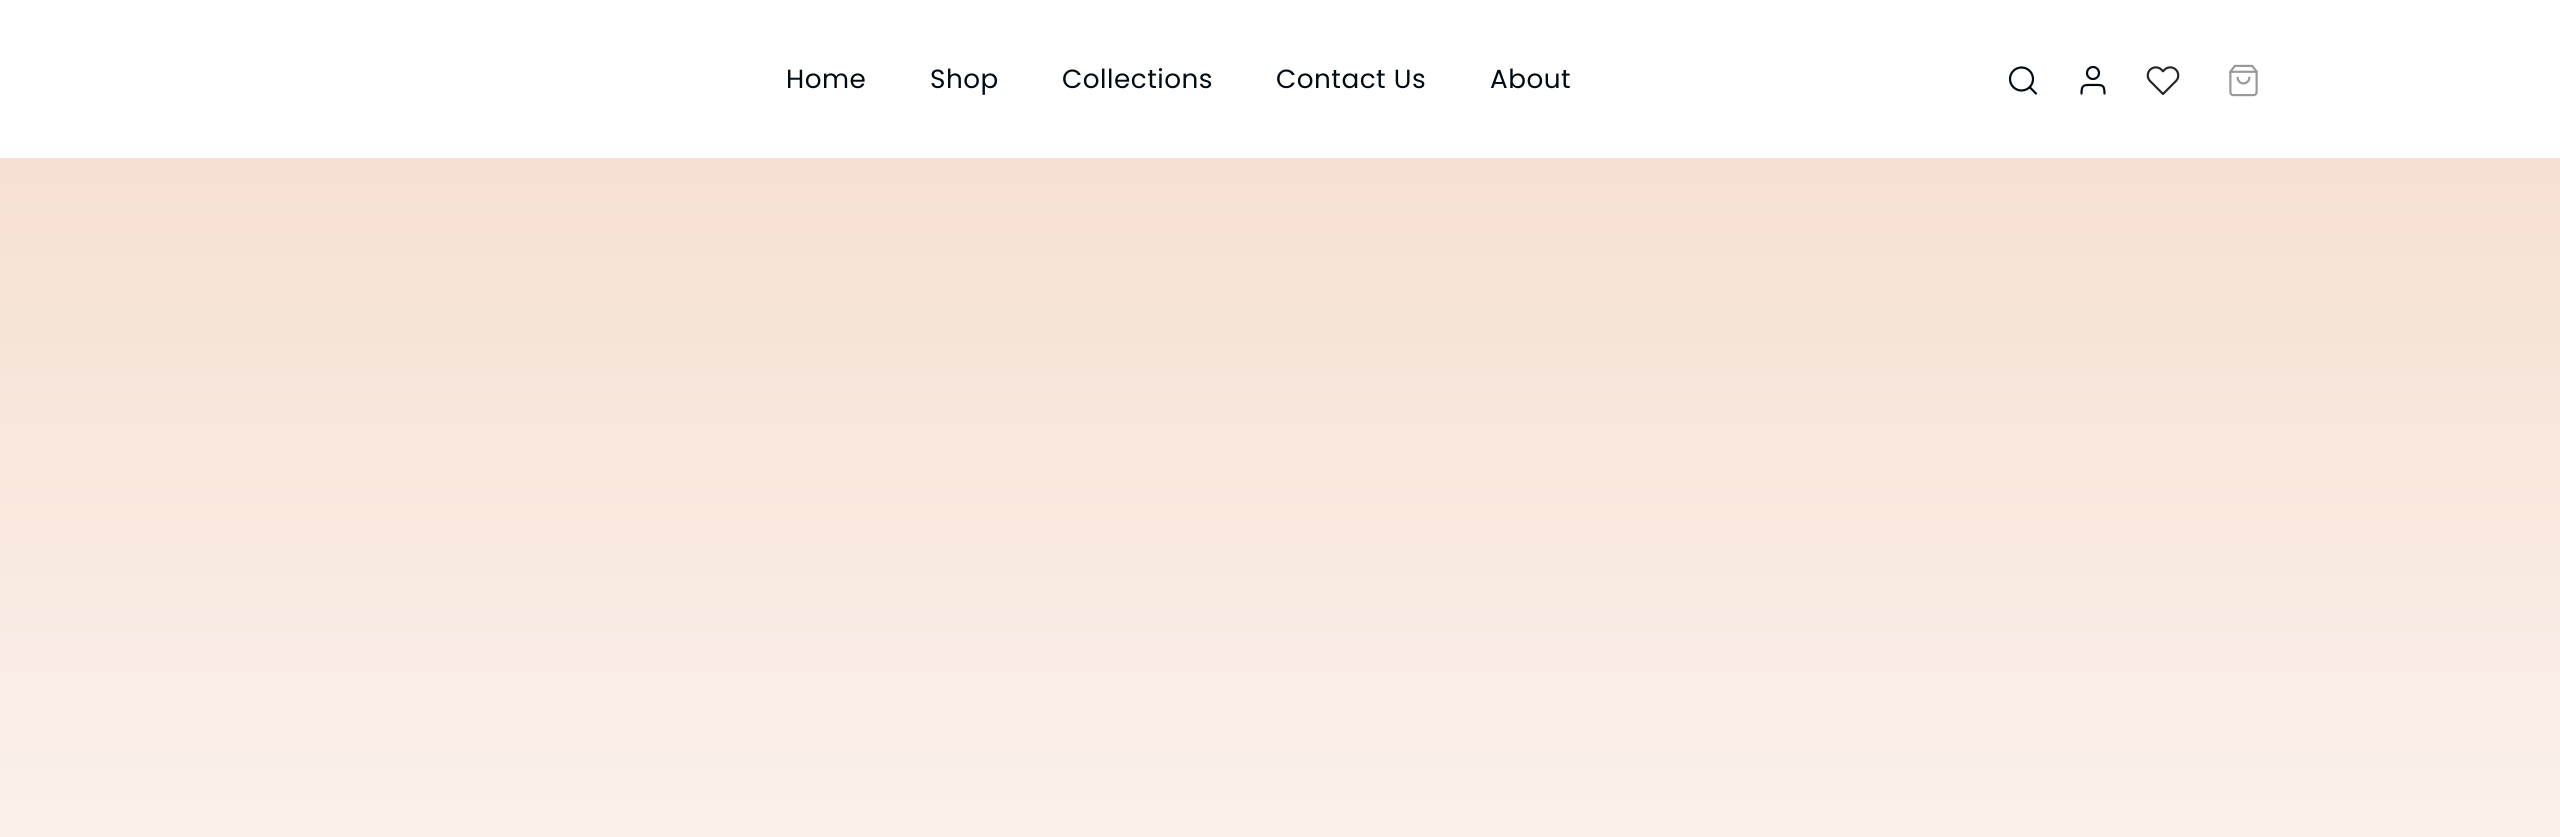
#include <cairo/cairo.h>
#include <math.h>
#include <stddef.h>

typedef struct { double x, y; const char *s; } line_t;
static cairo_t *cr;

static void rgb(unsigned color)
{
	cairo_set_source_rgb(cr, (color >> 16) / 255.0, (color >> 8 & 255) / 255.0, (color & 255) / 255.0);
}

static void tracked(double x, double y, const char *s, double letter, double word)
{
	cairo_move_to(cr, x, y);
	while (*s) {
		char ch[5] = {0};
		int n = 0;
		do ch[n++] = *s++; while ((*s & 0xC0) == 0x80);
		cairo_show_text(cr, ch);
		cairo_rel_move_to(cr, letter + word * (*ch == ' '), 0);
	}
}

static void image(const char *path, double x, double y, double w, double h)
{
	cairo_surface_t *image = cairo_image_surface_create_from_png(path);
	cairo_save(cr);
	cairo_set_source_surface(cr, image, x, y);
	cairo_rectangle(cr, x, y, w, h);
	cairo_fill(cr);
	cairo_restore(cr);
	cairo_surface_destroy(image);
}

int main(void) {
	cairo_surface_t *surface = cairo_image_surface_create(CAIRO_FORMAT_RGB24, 2560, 837);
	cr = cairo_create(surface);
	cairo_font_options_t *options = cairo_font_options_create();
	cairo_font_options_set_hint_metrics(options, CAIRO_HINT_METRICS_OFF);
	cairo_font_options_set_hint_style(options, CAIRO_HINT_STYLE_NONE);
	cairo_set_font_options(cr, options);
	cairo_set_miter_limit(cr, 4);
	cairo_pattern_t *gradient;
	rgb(0xffffff);
	cairo_paint(cr);
	cairo_arc(cr, 2021.5, 79, 11.5, 0, 2 * M_PI);
	rgb(0x000a12);
	cairo_set_line_width(cr, 2.2);
	cairo_stroke(cr);
	cairo_new_path(cr);
	cairo_move_to(cr, 2036, 93.5);
	cairo_line_to(cr, 2030, 87.5);
	cairo_set_line_cap(cr, CAIRO_LINE_CAP_ROUND);
	cairo_set_line_join(cr, CAIRO_LINE_JOIN_ROUND);
	cairo_stroke(cr);
	cairo_arc(cr, 2093, 73, 6, 0, 2 * M_PI);
	cairo_set_line_cap(cr, CAIRO_LINE_CAP_BUTT);
	cairo_set_line_join(cr, CAIRO_LINE_JOIN_MITER);
	cairo_stroke(cr);
	cairo_new_path(cr);
	cairo_move_to(cr, 2104.5, 93.5);
	cairo_curve_to(cr, 2104.5, 84, 2101.5, 85, 2093, 85);
	cairo_curve_to(cr, 2084.5, 85, 2081.5, 84, 2081.5, 93.5);
	cairo_set_line_cap(cr, CAIRO_LINE_CAP_ROUND);
	cairo_set_line_join(cr, CAIRO_LINE_JOIN_ROUND);
	cairo_stroke(cr);
	image("img/1.png", 2146, 66, 34, 29);
	image("img/2.png", 2229, 64, 29, 33);
	gradient = cairo_pattern_create_linear(1280, 157, 1280, 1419);
	cairo_pattern_add_color_stop_rgba(gradient, 0, 0.965, 0.878, 0.827, 1);
	cairo_pattern_add_color_stop_rgba(gradient, 1, 1, 1, 1, 1);
	cairo_set_source(cr, gradient);
	cairo_pattern_destroy(gradient);
	cairo_rectangle(cr, 0, 158, 2560, 679);
	cairo_fill(cr);
	cairo_select_font_face(cr, "Poppins", CAIRO_FONT_SLANT_NORMAL, CAIRO_FONT_WEIGHT_NORMAL);
	cairo_set_font_size(cr, 26.25);
	rgb(0x000a12);
	{
		static const line_t items[] = {
			{786, 88, "Home"},
			{930, 88, "Shop"},
			{1062, 88, "Collections"},
			{1276, 88, "Contact Us"},
			{1490, 88, "About"},
		};
		for (size_t i = 0; i < sizeof items / sizeof *items; i++) {
			tracked(items[i].x, items[i].y, items[i].s, 0.5, 0);
		}
	}
	cairo_surface_write_to_png(surface, "page.png");
	cairo_font_options_destroy(options);
	cairo_destroy(cr);
	cairo_surface_destroy(surface);
	return 0;
}
